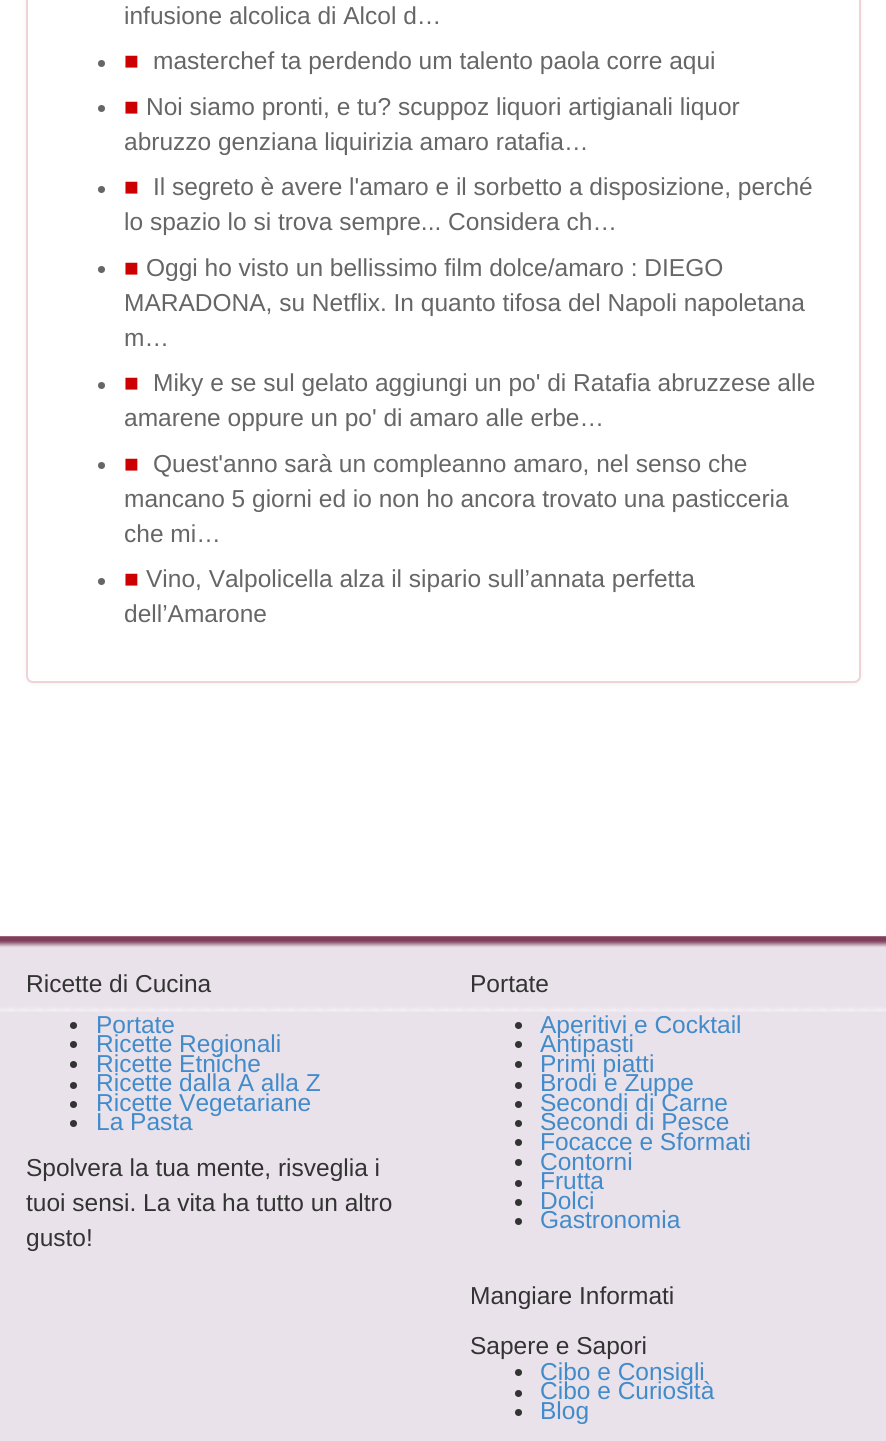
#include <cairo/cairo.h>
#include <math.h>
#include <stddef.h>

typedef struct { double x, y; const char *s; } line_t;
static cairo_t *cr;

static void rgb(unsigned color)
{
	cairo_set_source_rgb(cr, (color >> 16) / 255.0, (color >> 8 & 255) / 255.0, (color & 255) / 255.0);
}

static void rrect(double x, double y, double w, double h, double r)
{
	cairo_new_sub_path(cr);
	cairo_arc(cr, x + w - r, y + h - r, r, 0, M_PI / 2);
	cairo_arc(cr, x + r, y + h - r, r, M_PI / 2, M_PI);
	cairo_arc(cr, x + r, y + r, r, M_PI, 1.5 * M_PI);
	cairo_arc(cr, x + w - r, y + r, r, 1.5 * M_PI, 2 * M_PI);
	cairo_close_path(cr);
}

static void soft_shadow(double x, double y, double w, double h, double r, double blur, double alpha)
{
	cairo_push_group_with_content(cr, CAIRO_CONTENT_ALPHA);
	cairo_set_operator(cr, CAIRO_OPERATOR_SOURCE);
	for (int i = 15; i >= -15 && fmin(w, h) + blur * i / 3 > 0; i -= 2) {
		double e = blur * i / 6;
		cairo_set_source_rgba(cr, 0, 0, 0, alpha * erfc((i - 1) / 8.5) / 2);
		rrect(x - e, y - e, w + 2 * e, h + 2 * e, fmax(0, fmin(r + e + blur * .6, fmin(w, h) / 2 + e)));
		cairo_fill(cr);
	}
	cairo_pattern_t *soft = cairo_pop_group(cr);
	cairo_mask(cr, soft);
	cairo_pattern_destroy(soft);
}

static void image(const char *path, double x, double y, double w, double h)
{
	cairo_surface_t *image = cairo_image_surface_create_from_png(path);
	cairo_save(cr);
	cairo_set_source_surface(cr, image, x, y);
	cairo_rectangle(cr, x, y, w, h);
	cairo_fill(cr);
	cairo_restore(cr);
	cairo_surface_destroy(image);
}

int main(void) {
	cairo_surface_t *surface = cairo_image_surface_create(CAIRO_FORMAT_RGB24, 886, 1441);
	cr = cairo_create(surface);
	cairo_font_options_t *options = cairo_font_options_create();
	cairo_font_options_set_hint_metrics(options, CAIRO_HINT_METRICS_OFF);
	cairo_font_options_set_hint_style(options, CAIRO_HINT_STYLE_NONE);
	cairo_set_font_options(cr, options);
	cairo_set_miter_limit(cr, 4);
	rgb(0xffffff);
	cairo_paint(cr);
	rgb(0x000000);
	soft_shadow(26, -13, 835, 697, 7, 2, 0.05);
	rgb(0xffffff);
	rrect(27, -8, 833, 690, 6);
	cairo_fill_preserve(cr);
	rgb(0xeed3d7);
	cairo_stroke(cr);
	rgb(0x666666);
	cairo_arc(cr, 101.5, 63.5, 3.5, 0, 2 * M_PI);
	cairo_fill(cr);
	cairo_arc(cr, 101.5, 108.5, 3.5, 0, 2 * M_PI);
	cairo_fill(cr);
	cairo_arc(cr, 101.5, 189.5, 3.5, 0, 2 * M_PI);
	cairo_fill(cr);
	cairo_arc(cr, 101.5, 269.5, 3.5, 0, 2 * M_PI);
	cairo_fill(cr);
	cairo_arc(cr, 101.5, 385.5, 3.5, 0, 2 * M_PI);
	cairo_fill(cr);
	cairo_arc(cr, 101.5, 465.5, 3.5, 0, 2 * M_PI);
	cairo_fill(cr);
	cairo_arc(cr, 101.5, 581.5, 3.5, 0, 2 * M_PI);
	cairo_fill(cr);
	rgb(0xe9e2ea);
	cairo_rectangle(cr, 0, 936, 886, 505);
	cairo_fill(cr);
	image("img/1.png", 0, 936, 886, 76);
	rgb(0x333333);
	cairo_arc(cr, 73.5, 1025.5, 3.5, 0, 2 * M_PI);
	cairo_fill(cr);
	cairo_arc(cr, 73.5, 1044.5, 3.5, 0, 2 * M_PI);
	cairo_fill(cr);
	cairo_arc(cr, 73.5, 1064.5, 3.5, 0, 2 * M_PI);
	cairo_fill(cr);
	cairo_arc(cr, 73.5, 1085.5, 3.5, 0, 2 * M_PI);
	cairo_fill(cr);
	cairo_arc(cr, 73.5, 1104.5, 3.5, 0, 2 * M_PI);
	cairo_fill(cr);
	cairo_arc(cr, 73.5, 1123.5, 3.5, 0, 2 * M_PI);
	cairo_fill(cr);
	cairo_arc(cr, 518.5, 1025.5, 3.5, 0, 2 * M_PI);
	cairo_fill(cr);
	cairo_arc(cr, 518.5, 1044.5, 3.5, 0, 2 * M_PI);
	cairo_fill(cr);
	cairo_arc(cr, 518.5, 1064.5, 3.5, 0, 2 * M_PI);
	cairo_fill(cr);
	cairo_arc(cr, 518.5, 1085.5, 3.5, 0, 2 * M_PI);
	cairo_fill(cr);
	cairo_arc(cr, 518.5, 1104.5, 3.5, 0, 2 * M_PI);
	cairo_fill(cr);
	cairo_arc(cr, 518.5, 1123.5, 3.5, 0, 2 * M_PI);
	cairo_fill(cr);
	cairo_arc(cr, 518.5, 1142.5, 3.5, 0, 2 * M_PI);
	cairo_fill(cr);
	cairo_arc(cr, 518.5, 1162.5, 3.5, 0, 2 * M_PI);
	cairo_fill(cr);
	cairo_arc(cr, 518.5, 1183.5, 3.5, 0, 2 * M_PI);
	cairo_fill(cr);
	cairo_arc(cr, 518.5, 1202.5, 3.5, 0, 2 * M_PI);
	cairo_fill(cr);
	cairo_arc(cr, 518.5, 1221.5, 3.5, 0, 2 * M_PI);
	cairo_fill(cr);
	cairo_arc(cr, 518.5, 1372.5, 3.5, 0, 2 * M_PI);
	cairo_fill(cr);
	cairo_arc(cr, 518.5, 1393.5, 3.5, 0, 2 * M_PI);
	cairo_fill(cr);
	cairo_arc(cr, 518.5, 1412.5, 3.5, 0, 2 * M_PI);
	cairo_fill(cr);
	cairo_select_font_face(cr, "Liberation Sans", CAIRO_FONT_SLANT_NORMAL, CAIRO_FONT_WEIGHT_NORMAL);
	cairo_set_font_size(cr, 24.5);
	rgb(0x666666);
	cairo_move_to(cr, 124, 24);
	cairo_show_text(cr, "infusione alcolica di Alcol d…");
	rgb(0xcc0000);
	cairo_move_to(cr, 124, 69);
	cairo_show_text(cr, "■");
	rgb(0x666666);
	cairo_move_to(cr, 153, 69);
	cairo_show_text(cr, "masterchef ta perdendo um talento paola corre aqui");
	rgb(0xcc0000);
	cairo_move_to(cr, 124, 115);
	cairo_show_text(cr, "■");
	rgb(0x666666);
	cairo_move_to(cr, 146, 115);
	cairo_show_text(cr, "Noi siamo pronti, e tu? scuppoz liquori artigianali liquor");
	cairo_move_to(cr, 124, 150);
	cairo_show_text(cr, "abruzzo genziana liquirizia amaro ratafia…");
	rgb(0xcc0000);
	cairo_move_to(cr, 124, 195);
	cairo_show_text(cr, "■");
	rgb(0x666666);
	cairo_move_to(cr, 153, 195);
	cairo_show_text(cr, "Il segreto è avere l'amaro e il sorbetto a disposizione, perché");
	cairo_move_to(cr, 124, 230);
	cairo_show_text(cr, "lo spazio lo si trova sempre... Considera ch…");
	rgb(0xcc0000);
	cairo_move_to(cr, 124, 276);
	cairo_show_text(cr, "■");
	rgb(0x666666);
	{
		static const line_t items[] = {
			{146, 276, "Oggi ho visto un bellissimo film dolce/amaro : DIEGO"},
			{124, 311, "MARADONA, su Netflix. In quanto tifosa del Napoli napoletana"},
			{124, 346, "m…"},
		};
		for (size_t i = 0; i < sizeof items / sizeof *items; i++) {
			cairo_move_to(cr, items[i].x, items[i].y);
			cairo_show_text(cr, items[i].s);
		}
	}
	rgb(0xcc0000);
	cairo_move_to(cr, 124, 391);
	cairo_show_text(cr, "■");
	rgb(0x666666);
	cairo_move_to(cr, 153, 391);
	cairo_show_text(cr, "Miky e se sul gelato aggiungi un po' di Ratafia abruzzese alle");
	cairo_move_to(cr, 124, 426);
	cairo_show_text(cr, "amarene oppure un po' di amaro alle erbe…");
	rgb(0xcc0000);
	cairo_move_to(cr, 124, 472);
	cairo_show_text(cr, "■");
	rgb(0x666666);
	{
		static const line_t items[] = {
			{153, 472, "Quest'anno sarà un compleanno amaro, nel senso che"},
			{124, 507, "mancano 5 giorni ed io non ho ancora trovato una pasticceria"},
			{124, 542, "che mi…"},
		};
		for (size_t i = 0; i < sizeof items / sizeof *items; i++) {
			cairo_move_to(cr, items[i].x, items[i].y);
			cairo_show_text(cr, items[i].s);
		}
	}
	rgb(0xcc0000);
	cairo_move_to(cr, 124, 587);
	cairo_show_text(cr, "■");
	rgb(0x666666);
	cairo_move_to(cr, 146, 587);
	cairo_show_text(cr, "Vino, Valpolicella alza il sipario sull’annata perfetta");
	cairo_move_to(cr, 124, 622);
	cairo_show_text(cr, "dell’Amarone");
	rgb(0x333333);
	cairo_move_to(cr, 26, 992);
	cairo_show_text(cr, "Ricette di Cucina");
	rgb(0x428bca);
	{
		static const line_t items[] = {
			{96, 1033, "Portate"},
			{96, 1052, "Ricette Regionali"},
			{96, 1072, "Ricette Etniche"},
			{96, 1091, "Ricette dalla A alla Z"},
			{96, 1111, "Ricette Vegetariane"},
			{96, 1130, "La Pasta"},
		};
		for (size_t i = 0; i < sizeof items / sizeof *items; i++) {
			cairo_move_to(cr, items[i].x, items[i].y);
			cairo_show_text(cr, items[i].s);
		}
	}
	rgb(0x333333);
	{
		static const line_t items[] = {
			{26, 1176, "Spolvera la tua mente, risveglia i"},
			{26, 1211, "tuoi sensi. La vita ha tutto un altro"},
			{26, 1246, "gusto!"},
			{470, 992, "Portate"},
		};
		for (size_t i = 0; i < sizeof items / sizeof *items; i++) {
			cairo_move_to(cr, items[i].x, items[i].y);
			cairo_show_text(cr, items[i].s);
		}
	}
	rgb(0x428bca);
	{
		static const line_t items[] = {
			{540, 1033, "Aperitivi e Cocktail"},
			{540, 1052, "Antipasti"},
			{540, 1072, "Primi piatti"},
			{540, 1091, "Brodi e Zuppe"},
			{540, 1111, "Secondi di Carne"},
			{540, 1130, "Secondi di Pesce"},
			{540, 1150, "Focacce e Sformati"},
			{540, 1170, "Contorni"},
			{540, 1189, "Frutta"},
			{540, 1209, "Dolci"},
			{540, 1228, "Gastronomia"},
		};
		for (size_t i = 0; i < sizeof items / sizeof *items; i++) {
			cairo_move_to(cr, items[i].x, items[i].y);
			cairo_show_text(cr, items[i].s);
		}
	}
	rgb(0x333333);
	cairo_move_to(cr, 470, 1304);
	cairo_show_text(cr, "Mangiare Informati");
	cairo_move_to(cr, 470, 1354);
	cairo_show_text(cr, "Sapere e Sapori");
	rgb(0x428bca);
	{
		static const line_t items[] = {
			{540, 1380, "Cibo e Consigli"},
			{540, 1399, "Cibo e Curiosità"},
			{540, 1419, "Blog"},
		};
		for (size_t i = 0; i < sizeof items / sizeof *items; i++) {
			cairo_move_to(cr, items[i].x, items[i].y);
			cairo_show_text(cr, items[i].s);
		}
	}
	cairo_surface_write_to_png(surface, "page.png");
	cairo_font_options_destroy(options);
	cairo_destroy(cr);
	cairo_surface_destroy(surface);
	return 0;
}
